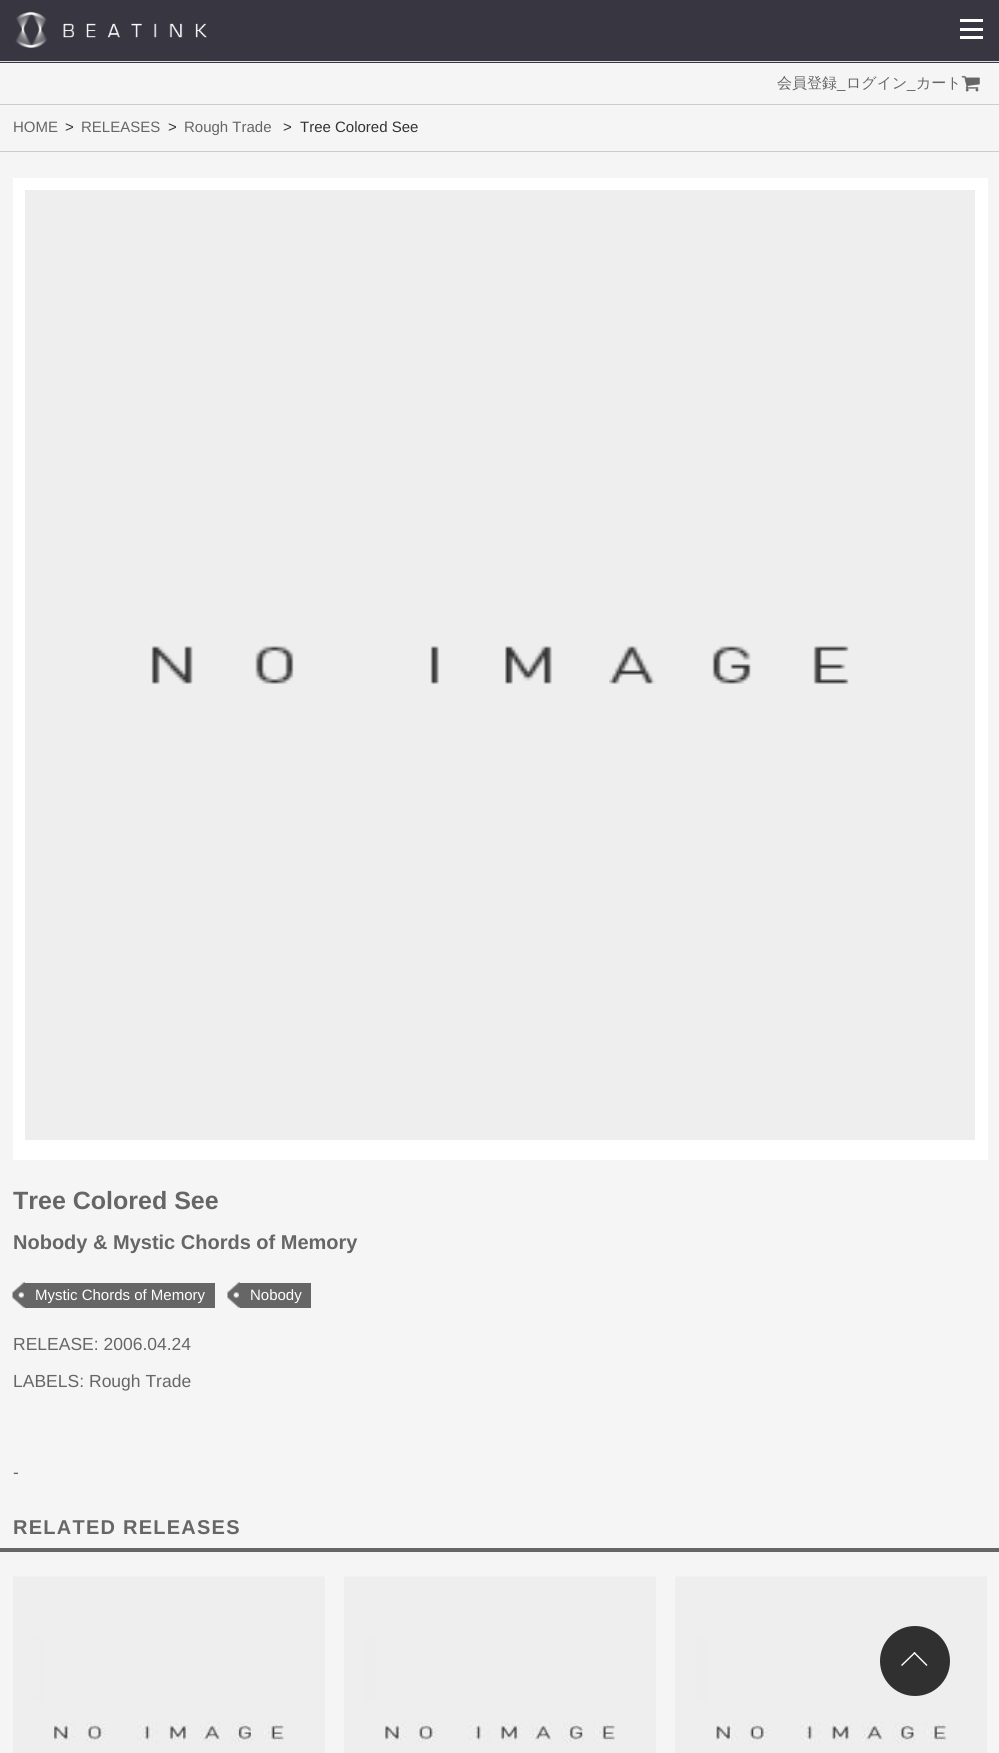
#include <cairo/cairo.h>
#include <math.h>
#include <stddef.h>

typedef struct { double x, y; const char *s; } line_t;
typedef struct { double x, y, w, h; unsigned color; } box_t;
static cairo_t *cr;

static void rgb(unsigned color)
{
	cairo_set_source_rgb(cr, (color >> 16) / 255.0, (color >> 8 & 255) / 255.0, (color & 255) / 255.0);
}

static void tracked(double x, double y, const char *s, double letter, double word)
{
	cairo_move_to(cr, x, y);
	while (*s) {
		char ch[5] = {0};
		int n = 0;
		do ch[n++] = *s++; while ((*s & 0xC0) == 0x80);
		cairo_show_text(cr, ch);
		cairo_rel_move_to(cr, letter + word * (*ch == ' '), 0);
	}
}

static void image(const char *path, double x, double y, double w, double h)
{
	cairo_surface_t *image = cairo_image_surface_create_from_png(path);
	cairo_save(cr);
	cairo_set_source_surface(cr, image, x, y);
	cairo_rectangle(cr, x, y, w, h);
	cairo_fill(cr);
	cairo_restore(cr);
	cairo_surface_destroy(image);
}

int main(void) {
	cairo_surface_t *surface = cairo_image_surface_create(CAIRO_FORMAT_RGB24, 999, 1753);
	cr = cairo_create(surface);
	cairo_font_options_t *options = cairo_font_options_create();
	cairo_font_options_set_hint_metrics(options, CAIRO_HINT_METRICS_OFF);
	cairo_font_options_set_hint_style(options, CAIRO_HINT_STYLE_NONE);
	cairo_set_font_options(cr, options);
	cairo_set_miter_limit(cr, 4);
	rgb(0x373641);
	cairo_paint(cr);
	rgb(0xdddddd);
	cairo_rectangle(cr, 0, 61, 999, 1);
	cairo_fill(cr);
	image("img/1.png", 15, 11, 192, 38);
	{
		static const box_t items[] = {
			{960, 28, 23, 3, 0xffffff},
			{960, 19, 23, 3, 0xffffff},
			{960, 36, 23, 3, 0xffffff},
			{0, 63, 999, 41, 0xf5f5f5},
			{0, 104, 999, 1, 0xcccccc},
		};
		for (size_t i = 0; i < sizeof items / sizeof *items; i++) {
			rgb(items[i].color);
			cairo_rectangle(cr, items[i].x, items[i].y, items[i].w, items[i].h);
			cairo_fill(cr);
		}
	}
	image("img/2.png", 961, 75, 19, 17);
	{
		static const box_t items[] = {
			{0, 105, 999, 1648, 0xf5f5f5},
			{0, 151, 999, 1, 0xcccccc},
			{13, 178, 975, 982, 0xffffff},
		};
		for (size_t i = 0; i < sizeof items / sizeof *items; i++) {
			rgb(items[i].color);
			cairo_rectangle(cr, items[i].x, items[i].y, items[i].w, items[i].h);
			cairo_fill(cr);
		}
	}
	image("img/3.png", 25, 190, 950, 950);
	rgb(0x666666);
	cairo_rectangle(cr, 25, 1283, 190, 25);
	cairo_fill(cr);
	image("img/4.png", 12, 1282, 13, 26);
	cairo_rectangle(cr, 240, 1283, 71, 25);
	cairo_fill(cr);
	image("img/4.png", 227, 1282, 13, 26);
	cairo_rectangle(cr, 0, 1548, 999, 4);
	cairo_fill(cr);
	image("img/5.png", 13, 1576, 312, 177);
	image("img/6.png", 344, 1576, 312, 177);
	image("img/7.png", 675, 1576, 312, 177);
	rgb(0x303030);
	cairo_arc(cr, 915, 1661, 35, 0, 2 * M_PI);
	cairo_fill(cr);
	rgb(0xffffff);
	cairo_new_path(cr);
	cairo_move_to(cr, 901, 1665);
	cairo_line_to(cr, 914.5, 1652);
	cairo_line_to(cr, 915.5, 1653);
	cairo_line_to(cr, 902, 1666);
	cairo_close_path(cr);
	cairo_fill(cr);
	cairo_new_path(cr);
	cairo_move_to(cr, 913.5, 1653);
	cairo_line_to(cr, 914.5, 1652);
	cairo_line_to(cr, 927.5, 1665);
	cairo_line_to(cr, 926.5, 1666);
	cairo_close_path(cr);
	cairo_fill(cr);
	cairo_select_font_face(cr, "WenQuanYi Zen Hei Medium", CAIRO_FONT_SLANT_NORMAL, CAIRO_FONT_WEIGHT_NORMAL);
	cairo_set_font_size(cr, 15);
	rgb(0x666666);
	{
		static const line_t items[] = {
			{777, 88, "会員登録"},
			{846, 88, "ログイン"},
			{916, 88, "カート"},
		};
		for (size_t i = 0; i < sizeof items / sizeof *items; i++) {
			cairo_move_to(cr, items[i].x, items[i].y);
			cairo_show_text(cr, items[i].s);
		}
	}
	cairo_select_font_face(cr, "Liberation Sans", CAIRO_FONT_SLANT_NORMAL, CAIRO_FONT_WEIGHT_NORMAL);
	{
		static const line_t items[] = {
			{837, 88, "_"},
			{907, 88, "_"},
			{13, 132, "HOME"},
		};
		for (size_t i = 0; i < sizeof items / sizeof *items; i++) {
			cairo_move_to(cr, items[i].x, items[i].y);
			cairo_show_text(cr, items[i].s);
		}
	}
	rgb(0x333333);
	cairo_move_to(cr, 65, 132);
	cairo_show_text(cr, ">");
	rgb(0x666666);
	cairo_move_to(cr, 81, 132);
	cairo_show_text(cr, "RELEASES");
	rgb(0x333333);
	cairo_move_to(cr, 168, 132);
	cairo_show_text(cr, ">");
	rgb(0x666666);
	cairo_move_to(cr, 184, 132);
	cairo_show_text(cr, "Rough Trade");
	rgb(0x333333);
	cairo_move_to(cr, 283, 132);
	cairo_show_text(cr, ">");
	cairo_move_to(cr, 300, 132);
	cairo_show_text(cr, "Tree Colored See");
	cairo_select_font_face(cr, "Liberation Sans", CAIRO_FONT_SLANT_NORMAL, CAIRO_FONT_WEIGHT_BOLD);
	cairo_set_font_size(cr, 25);
	rgb(0x666666);
	cairo_move_to(cr, 13, 1209);
	cairo_show_text(cr, "Tree Colored See");
	cairo_set_font_size(cr, 20);
	cairo_move_to(cr, 13, 1249);
	cairo_show_text(cr, "Nobody & Mystic Chords of Memory");
	cairo_select_font_face(cr, "Liberation Sans", CAIRO_FONT_SLANT_NORMAL, CAIRO_FONT_WEIGHT_NORMAL);
	cairo_set_font_size(cr, 15);
	rgb(0xffffff);
	cairo_move_to(cr, 35, 1300);
	cairo_show_text(cr, "Mystic Chords of Memory");
	cairo_move_to(cr, 250, 1300);
	cairo_show_text(cr, "Nobody");
	cairo_set_font_size(cr, 17.5);
	rgb(0x666666);
	{
		static const line_t items[] = {
			{13, 1350, "RELEASE: 2006.04.24"},
			{13, 1387, "LABELS:"},
			{89, 1387, "Rough Trade"},
			{13, 1478, "-"},
		};
		for (size_t i = 0; i < sizeof items / sizeof *items; i++) {
			cairo_move_to(cr, items[i].x, items[i].y);
			cairo_show_text(cr, items[i].s);
		}
	}
	cairo_select_font_face(cr, "Liberation Sans", CAIRO_FONT_SLANT_NORMAL, CAIRO_FONT_WEIGHT_BOLD);
	cairo_set_font_size(cr, 20);
	tracked(13, 1534, "RELATED RELEASES", 1.25, 0);
	cairo_surface_write_to_png(surface, "page.png");
	cairo_font_options_destroy(options);
	cairo_destroy(cr);
	cairo_surface_destroy(surface);
	return 0;
}
